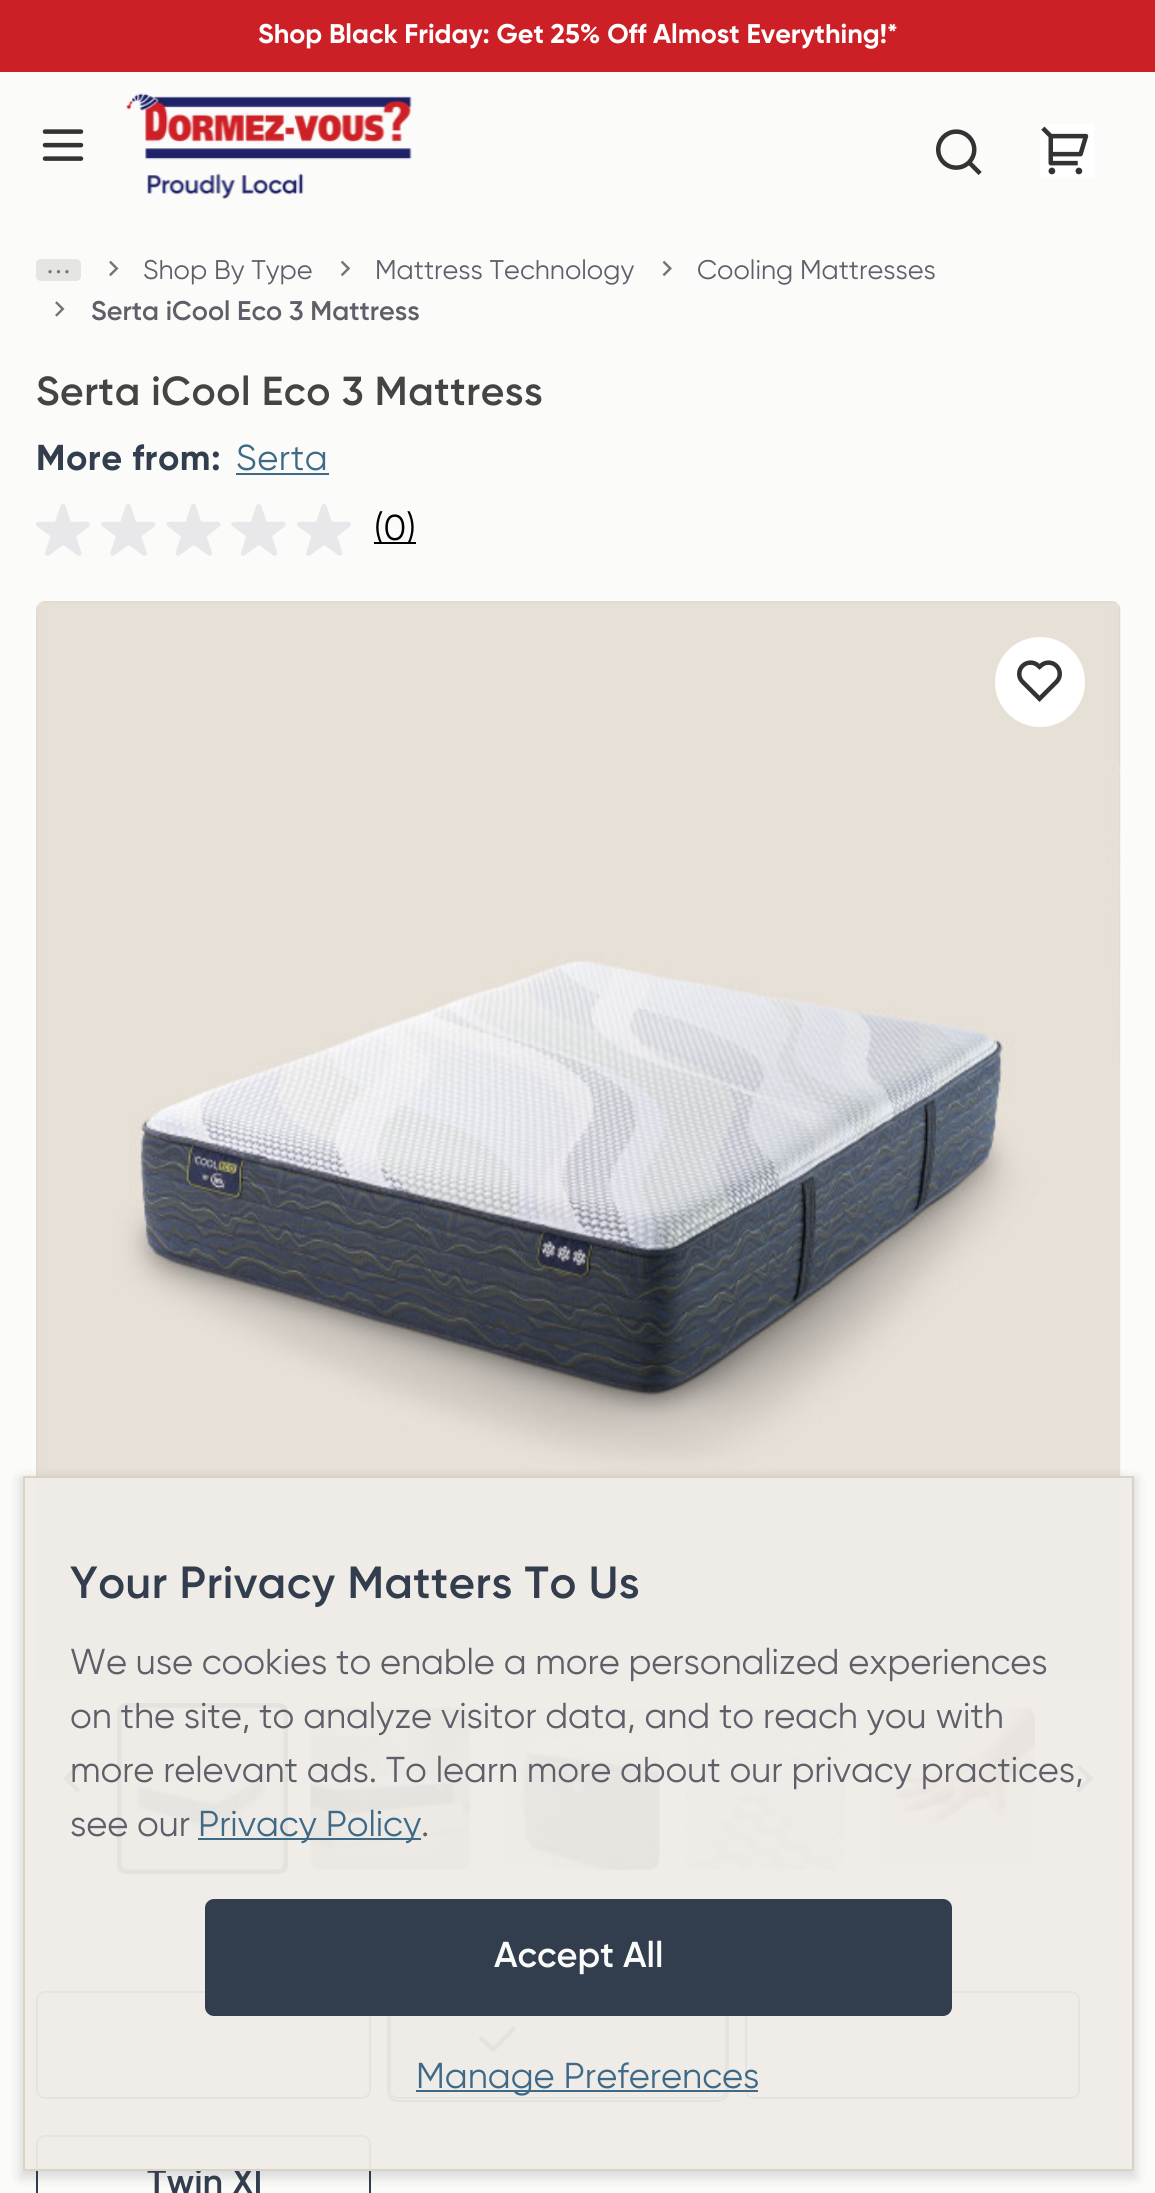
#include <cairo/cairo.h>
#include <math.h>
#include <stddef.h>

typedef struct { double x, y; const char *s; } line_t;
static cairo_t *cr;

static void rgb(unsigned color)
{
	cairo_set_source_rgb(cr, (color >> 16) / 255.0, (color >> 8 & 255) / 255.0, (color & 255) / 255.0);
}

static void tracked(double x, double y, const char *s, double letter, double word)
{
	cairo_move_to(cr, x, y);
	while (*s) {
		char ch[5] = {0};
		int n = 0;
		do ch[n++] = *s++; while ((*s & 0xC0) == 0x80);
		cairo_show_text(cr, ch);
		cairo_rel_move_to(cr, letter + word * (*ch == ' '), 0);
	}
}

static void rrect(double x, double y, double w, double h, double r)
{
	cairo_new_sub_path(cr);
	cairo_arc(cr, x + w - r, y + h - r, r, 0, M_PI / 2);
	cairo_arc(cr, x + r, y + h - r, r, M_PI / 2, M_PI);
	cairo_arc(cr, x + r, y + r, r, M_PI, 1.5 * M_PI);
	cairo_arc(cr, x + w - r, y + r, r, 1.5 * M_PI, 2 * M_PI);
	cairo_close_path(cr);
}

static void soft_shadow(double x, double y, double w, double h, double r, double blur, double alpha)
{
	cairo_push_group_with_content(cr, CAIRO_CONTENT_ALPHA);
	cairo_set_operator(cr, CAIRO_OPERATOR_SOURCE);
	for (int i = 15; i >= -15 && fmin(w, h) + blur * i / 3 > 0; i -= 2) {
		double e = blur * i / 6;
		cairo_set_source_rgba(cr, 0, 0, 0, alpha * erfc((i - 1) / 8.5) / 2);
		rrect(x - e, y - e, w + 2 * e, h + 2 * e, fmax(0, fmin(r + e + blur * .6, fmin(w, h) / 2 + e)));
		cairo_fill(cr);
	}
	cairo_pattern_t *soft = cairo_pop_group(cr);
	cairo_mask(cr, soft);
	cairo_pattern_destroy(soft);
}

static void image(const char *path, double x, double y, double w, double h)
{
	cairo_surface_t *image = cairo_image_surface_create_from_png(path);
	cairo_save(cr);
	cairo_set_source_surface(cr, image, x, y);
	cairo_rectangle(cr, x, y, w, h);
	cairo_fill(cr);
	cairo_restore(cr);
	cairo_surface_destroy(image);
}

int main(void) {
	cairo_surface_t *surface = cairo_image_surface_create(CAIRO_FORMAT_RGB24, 1155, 2193);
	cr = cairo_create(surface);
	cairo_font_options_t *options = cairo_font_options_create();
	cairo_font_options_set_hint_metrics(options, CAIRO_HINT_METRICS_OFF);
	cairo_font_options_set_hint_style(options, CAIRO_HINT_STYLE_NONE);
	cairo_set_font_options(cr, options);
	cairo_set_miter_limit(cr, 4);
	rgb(0xfbfbf9);
	cairo_paint(cr);
	rgb(0xcd2026);
	cairo_rectangle(cr, 0, 0, 1155, 72);
	cairo_fill(cr);
	image("img/1.png", 42, 129, 42, 32);
	image("img/2.png", 126, 93, 286, 107);
	image("img/3.png", 936, 129, 46, 46);
	rgb(0xffffff);
	cairo_rectangle(cr, 1040, 124, 54, 54);
	cairo_fill(cr);
	image("img/4.png", 1041, 126, 48, 49);
	rgb(0xe5e5e4);
	rrect(36, 259, 45, 22, 5);
	cairo_fill(cr);
	image("img/5.png", 48, 270, 21, 4);
	image("img/6.png", 109, 260, 10, 17);
	image("img/7.png", 340, 260, 11, 17);
	image("img/8.png", 662, 260, 10, 17);
	image("img/9.png", 55, 301, 10, 16);
	rgb(0x3e6a87);
	cairo_rectangle(cr, 236, 473, 93, 2);
	cairo_fill(cr);
	image("img/10.png", 36, 504, 54, 52);
	image("img/11.png", 101, 504, 55, 52);
	image("img/12.png", 166, 504, 55, 52);
	image("img/13.png", 231, 504, 55, 52);
	image("img/10.png", 297, 504, 54, 52);
	rgb(0x000000);
	cairo_rectangle(cr, 374, 542, 42, 2);
	cairo_fill(cr);
	image("img/14.png", 36, 601, 1085, 1085);
	rgb(0xffffff);
	cairo_arc(cr, 1040, 682, 45, 0, 2 * M_PI);
	cairo_fill(cr);
	image("img/15.png", 1017, 660, 45, 42);
	rgb(0xfbfbf9);
	cairo_rectangle(cr, 43, 1685, 65, 1);
	cairo_fill(cr);
	rgb(0x323d4d);
	cairo_new_path(cr);
	cairo_move_to(cr, 69.5, 1778.5);
	cairo_line_to(cr, 80.5, 1790);
	cairo_line_to(cr, 77.5, 1793);
	cairo_line_to(cr, 63, 1778.5);
	cairo_line_to(cr, 77.5, 1764.5);
	cairo_line_to(cr, 80.5, 1767.5);
	cairo_close_path(cr);
	cairo_fill(cr);
	rrect(119.5, 1705.5, 166, 166, 6.5);
	rgb(0x1a1b29);
	cairo_set_line_width(cr, 5);
	cairo_stroke(cr);
	image("img/16.png", 121, 1707, 163, 163);
	image("img/17.png", 310, 1707, 161, 163);
	image("img/18.png", 497, 1707, 163, 163);
	image("img/19.png", 686, 1707, 161, 163);
	image("img/20.png", 873, 1707, 162, 163);
	rgb(0xfbfbf9);
	cairo_rectangle(cr, 1049, 1685, 64, 1);
	cairo_fill(cr);
	rgb(0x323d4d);
	cairo_new_path(cr);
	cairo_move_to(cr, 1087, 1778.5);
	cairo_line_to(cr, 1076, 1767.5);
	cairo_line_to(cr, 1079, 1764.5);
	cairo_line_to(cr, 1093.5, 1778.5);
	cairo_line_to(cr, 1079, 1793);
	cairo_line_to(cr, 1076, 1790);
	cairo_close_path(cr);
	cairo_fill(cr);
	rrect(37, 1992, 333, 106, 8);
	cairo_set_line_width(cr, 2);
	cairo_stroke(cr);
	rrect(388, 1990, 340, 111, 10);
	rgb(0x333333);
	cairo_stroke(cr);
	rgb(0xf0ede8);
	rrect(390, 1992, 336, 106, 8);
	cairo_fill_preserve(cr);
	rgb(0x323d4d);
	cairo_stroke(cr);
	rgb(0x1a1b29);
	cairo_new_path(cr);
	cairo_move_to(cr, 493, 2046.5);
	cairo_line_to(cr, 513.5, 2026);
	cairo_line_to(cr, 516.5, 2029);
	cairo_line_to(cr, 493, 2053);
	cairo_line_to(cr, 478.5, 2039);
	cairo_line_to(cr, 481.5, 2035.5);
	cairo_close_path(cr);
	cairo_fill(cr);
	rrect(746, 1992, 333, 106, 8);
	rgb(0x323d4d);
	cairo_stroke(cr);
	rrect(37, 2136, 333, 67, 8);
	cairo_stroke(cr);
	cairo_save(cr);
	cairo_set_fill_rule(cr, CAIRO_FILL_RULE_EVEN_ODD);
	cairo_new_path(cr);
	cairo_move_to(cr, 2, 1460);
	cairo_line_to(cr, 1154, 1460);
	cairo_line_to(cr, 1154, 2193);
	cairo_line_to(cr, 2, 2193);
	cairo_close_path(cr);
	cairo_move_to(cr, 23, 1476);
	cairo_line_to(cr, 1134, 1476);
	cairo_line_to(cr, 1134, 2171);
	cairo_line_to(cr, 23, 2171);
	cairo_close_path(cr);
	cairo_clip(cr);
	rgb(0x1a1b29);
	soft_shadow(20, 1478, 1116, 700, 0, 5.5, 0.15);
	cairo_restore(cr);
	cairo_select_font_face(cr, "Gilroy", CAIRO_FONT_SLANT_NORMAL, CAIRO_FONT_WEIGHT_BOLD);
	cairo_set_font_size(cr, 27);
	rgb(0xffffff);
	cairo_move_to(cr, 258, 43);
	cairo_show_text(cr, "Shop Black Friday: Get 25% Off Almost Everything!*");
	cairo_select_font_face(cr, "Gilroy", CAIRO_FONT_SLANT_NORMAL, CAIRO_FONT_WEIGHT_NORMAL);
	rgb(0x5f5f69);
	{
		static const line_t items[] = {
			{143, 279, "Shop By Type"},
			{375, 279, "Mattress Technology"},
			{697, 279, "Cooling Mattresses"},
		};
		for (size_t i = 0; i < sizeof items / sizeof *items; i++) {
			cairo_move_to(cr, items[i].x, items[i].y);
			cairo_show_text(cr, items[i].s);
		}
	}
	cairo_select_font_face(cr, "Gilroy SemiBold", CAIRO_FONT_SLANT_NORMAL, CAIRO_FONT_WEIGHT_NORMAL);
	cairo_move_to(cr, 91, 320);
	cairo_show_text(cr, "Serta iCool Eco 3 Mattress");
	cairo_set_font_size(cr, 40.5);
	rgb(0x444444);
	tracked(36, 405, "Serta iCool Eco 3 Mattress", 0.55, 0);
	cairo_select_font_face(cr, "Gilroy", CAIRO_FONT_SLANT_NORMAL, CAIRO_FONT_WEIGHT_BOLD);
	cairo_set_font_size(cr, 36);
	rgb(0x323d4d);
	tracked(36, 470, "More from:", 0.55, 0);
	cairo_select_font_face(cr, "Gilroy", CAIRO_FONT_SLANT_NORMAL, CAIRO_FONT_WEIGHT_NORMAL);
	rgb(0x3e6a87);
	tracked(236, 470, "Serta", 0.55, 0);
	rgb(0x000000);
	cairo_move_to(cr, 374, 540);
	cairo_show_text(cr, "(0)");
	cairo_select_font_face(cr, "Gilroy SemiBold", CAIRO_FONT_SLANT_NORMAL, CAIRO_FONT_WEIGHT_NORMAL);
	rgb(0x323d4d);
	cairo_move_to(cr, 147, 2194);
	cairo_show_text(cr, "Twin Xl");
	cairo_set_source_rgba(cr, 0.941, 0.929, 0.91, 0.95);
	cairo_rectangle(cr, 24, 1477, 1109, 693);
	cairo_fill_preserve(cr);
	rgb(0xdad2c5);
	cairo_stroke(cr);
	cairo_set_font_size(cr, 45);
	rgb(0x323d4d);
	tracked(70, 1598, "Your Privacy Matters To Us", 0.55, 0);
	cairo_select_font_face(cr, "Gilroy", CAIRO_FONT_SLANT_NORMAL, CAIRO_FONT_WEIGHT_NORMAL);
	cairo_set_font_size(cr, 36);
	rgb(0x5f5f69);
	{
		static const line_t items[] = {
			{70, 1674, "We use cookies to enable a more personalized experiences"},
			{70, 1728, "on the site, to analyze visitor data, and to reach you with"},
			{70, 1782, "more relevant ads. To learn more about our privacy practices,"},
			{70, 1836, "see our"},
		};
		for (size_t i = 0; i < sizeof items / sizeof *items; i++) {
			tracked(items[i].x, items[i].y, items[i].s, -0.1, 0);
		}
	}
	rgb(0x3e6a87);
	cairo_rectangle(cr, 198, 1838, 223, 2);
	cairo_fill(cr);
	tracked(198, 1836, "Privacy Policy", -0.1, 0);
	rgb(0x5f5f69);
	tracked(421, 1836, ".", -0.1, 0);
	rgb(0x323d4d);
	rrect(205, 1899, 747, 117, 9);
	cairo_fill(cr);
	cairo_select_font_face(cr, "Gilroy SemiBold", CAIRO_FONT_SLANT_NORMAL, CAIRO_FONT_WEIGHT_NORMAL);
	rgb(0xfbfbf9);
	cairo_move_to(cr, 494, 1967);
	cairo_show_text(cr, "Accept All");
	rgb(0x3e6a87);
	cairo_rectangle(cr, 416, 2090, 342, 2);
	cairo_fill(cr);
	cairo_select_font_face(cr, "Gilroy", CAIRO_FONT_SLANT_NORMAL, CAIRO_FONT_WEIGHT_NORMAL);
	cairo_move_to(cr, 416, 2088);
	cairo_show_text(cr, "Manage Preferences");
	cairo_surface_write_to_png(surface, "page.png");
	cairo_font_options_destroy(options);
	cairo_destroy(cr);
	cairo_surface_destroy(surface);
	return 0;
}
